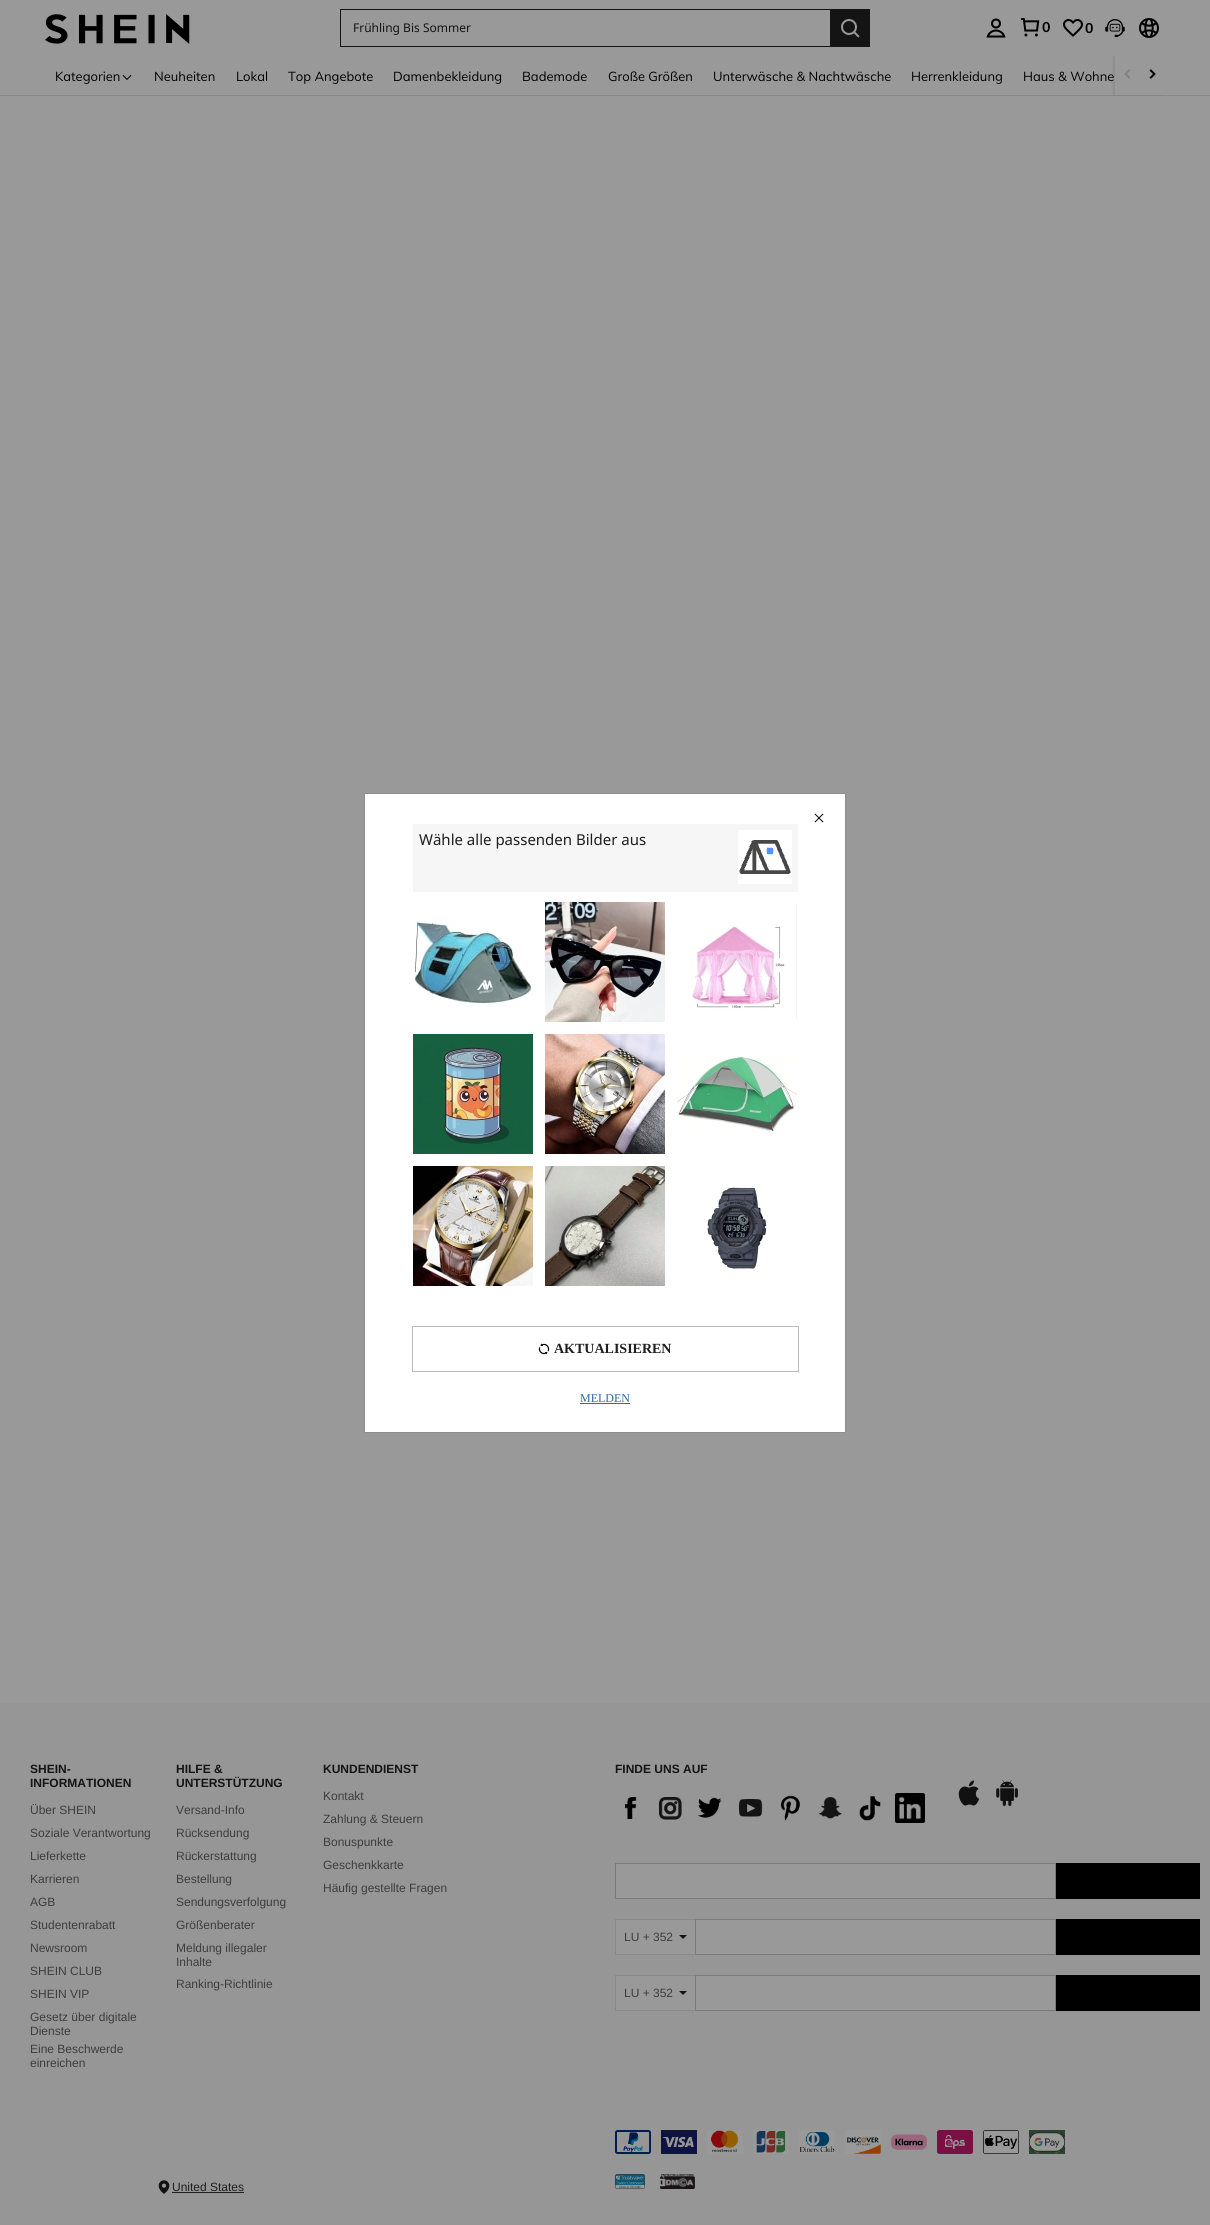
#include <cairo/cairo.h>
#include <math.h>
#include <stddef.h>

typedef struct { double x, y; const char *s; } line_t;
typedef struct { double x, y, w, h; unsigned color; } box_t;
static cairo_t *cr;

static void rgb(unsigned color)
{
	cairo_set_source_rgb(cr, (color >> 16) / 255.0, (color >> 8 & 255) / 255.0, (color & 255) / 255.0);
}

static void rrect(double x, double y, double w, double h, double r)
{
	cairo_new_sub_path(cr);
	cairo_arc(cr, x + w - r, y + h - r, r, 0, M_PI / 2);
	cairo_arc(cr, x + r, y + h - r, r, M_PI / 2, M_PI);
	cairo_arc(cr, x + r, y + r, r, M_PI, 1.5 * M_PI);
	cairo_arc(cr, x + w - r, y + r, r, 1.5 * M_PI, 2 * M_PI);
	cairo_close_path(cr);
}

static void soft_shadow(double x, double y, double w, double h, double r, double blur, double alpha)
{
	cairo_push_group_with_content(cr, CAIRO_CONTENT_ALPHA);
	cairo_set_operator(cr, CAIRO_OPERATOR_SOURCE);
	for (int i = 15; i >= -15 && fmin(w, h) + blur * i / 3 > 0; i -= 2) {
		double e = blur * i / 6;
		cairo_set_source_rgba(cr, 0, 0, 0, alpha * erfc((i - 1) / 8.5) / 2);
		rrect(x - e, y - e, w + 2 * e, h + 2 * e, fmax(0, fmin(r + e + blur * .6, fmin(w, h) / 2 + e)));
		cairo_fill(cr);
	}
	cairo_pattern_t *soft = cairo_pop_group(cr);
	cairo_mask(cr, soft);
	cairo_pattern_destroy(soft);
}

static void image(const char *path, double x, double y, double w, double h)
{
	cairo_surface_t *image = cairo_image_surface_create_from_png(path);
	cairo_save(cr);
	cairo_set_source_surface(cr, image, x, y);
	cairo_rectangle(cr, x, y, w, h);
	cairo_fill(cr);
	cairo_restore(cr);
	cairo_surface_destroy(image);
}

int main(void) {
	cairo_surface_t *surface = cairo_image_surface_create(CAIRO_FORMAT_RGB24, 1210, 2225);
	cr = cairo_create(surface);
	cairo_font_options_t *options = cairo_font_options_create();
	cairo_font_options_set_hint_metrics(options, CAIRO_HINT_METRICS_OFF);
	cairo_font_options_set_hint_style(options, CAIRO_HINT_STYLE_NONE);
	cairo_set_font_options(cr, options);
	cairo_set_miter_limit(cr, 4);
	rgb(0x999999);
	cairo_paint(cr);
	rgb(0x898989);
	cairo_rectangle(cr, 0, 95, 1210, 1);
	cairo_fill(cr);
	rgb(0x000000);
	soft_shadow(1113, 56, 50, 39, 0, 1.5, 0.08);
	rgb(0x999999);
	cairo_rectangle(cr, 1113, 55, 50, 1);
	cairo_fill(cr);
	image("img/1.png", 45, 14, 145, 30);
	{
		static const box_t items[] = {
			{340, 9, 490, 1, 0x141414},
			{340, 46, 490, 1, 0x141414},
			{340, 9, 1, 38, 0x141414},
			{830, 9, 40, 38, 0x141414},
		};
		for (size_t i = 0; i < sizeof items / sizeof *items; i++) {
			rgb(items[i].color);
			cairo_rectangle(cr, items[i].x, items[i].y, items[i].w, items[i].h);
			cairo_fill(cr);
		}
	}
	image("img/2.png", 841, 19, 19, 19);
	image("img/3.png", 986, 18, 20, 20);
	image("img/4.png", 1021, 18, 19, 19);
	image("img/5.png", 1063, 19, 20, 18);
	image("img/6.png", 1105, 19, 20, 19);
	image("img/7.png", 1139, 18, 20, 20);
	image("img/8.png", 122, 75, 10, 5);
	rgb(0x999999);
	cairo_rectangle(cr, 1115, 56, 49, 39);
	cairo_fill(cr);
	image("img/9.png", 1124, 69, 7, 10);
	image("img/10.png", 1149, 69, 7, 10);
	rgb(0x969696);
	cairo_rectangle(cr, 0, 1703, 1210, 522);
	cairo_fill(cr);
	image("img/11.png", 625, 1797, 12, 22);
	image("img/12.png", 659, 1797, 23, 23);
	image("img/13.png", 697, 1797, 25, 21);
	image("img/14.png", 739, 1799, 24, 18);
	image("img/15.png", 781, 1795, 20, 26);
	image("img/16.png", 819, 1797, 23, 22);
	image("img/17.png", 859, 1796, 22, 25);
	image("img/18.png", 895, 1793, 30, 30);
	image("img/19.png", 958, 1780, 22, 26);
	image("img/20.png", 996, 1780, 22, 26);
	rgb(0x999999);
	cairo_rectangle(cr, 615.5, 1863.5, 440, 35);
	cairo_fill_preserve(cr);
	rgb(0x7a7a7a);
	cairo_set_line_width(cr, 1);
	cairo_stroke(cr);
	{
		static const box_t items[] = {
			{1056, 1863, 144, 36, 0x000000},
			{616, 1920, 79, 34, 0x999999},
			{615, 1919, 80, 1, 0x898989},
			{615, 1954, 80, 1, 0x898989},
			{615, 1919, 1, 36, 0x898989},
		};
		for (size_t i = 0; i < sizeof items / sizeof *items; i++) {
			rgb(items[i].color);
			cairo_rectangle(cr, items[i].x, items[i].y, items[i].w, items[i].h);
			cairo_fill(cr);
		}
	}
	rgb(0x141414);
	cairo_new_path(cr);
	cairo_move_to(cr, 679, 1935);
	cairo_line_to(cr, 687, 1935);
	cairo_line_to(cr, 683, 1939);
	cairo_close_path(cr);
	cairo_fill(cr);
	rgb(0x999999);
	cairo_rectangle(cr, 695.5, 1919.5, 360, 35);
	cairo_fill_preserve(cr);
	rgb(0x7a7a7a);
	cairo_stroke(cr);
	{
		static const box_t items[] = {
			{1056, 1919, 144, 36, 0x000000},
			{616, 1976, 79, 34, 0x999999},
			{615, 1975, 80, 1, 0x898989},
			{615, 2010, 80, 1, 0x898989},
			{615, 1975, 1, 36, 0x898989},
		};
		for (size_t i = 0; i < sizeof items / sizeof *items; i++) {
			rgb(items[i].color);
			cairo_rectangle(cr, items[i].x, items[i].y, items[i].w, items[i].h);
			cairo_fill(cr);
		}
	}
	rgb(0x141414);
	cairo_new_path(cr);
	cairo_move_to(cr, 679, 1991);
	cairo_line_to(cr, 687, 1991);
	cairo_line_to(cr, 683, 1995);
	cairo_close_path(cr);
	cairo_fill(cr);
	rgb(0x999999);
	cairo_rectangle(cr, 695.5, 1975.5, 360, 35);
	cairo_fill_preserve(cr);
	rgb(0x7a7a7a);
	cairo_stroke(cr);
	rgb(0x000000);
	cairo_rectangle(cr, 1056, 1975, 144, 36);
	cairo_fill(cr);
	image("img/21.png", 615, 2130, 36, 24);
	image("img/22.png", 661, 2130, 36, 24);
	image("img/23.png", 707, 2130, 36, 24);
	image("img/24.png", 753, 2130, 36, 24);
	image("img/25.png", 799, 2130, 36, 24);
	image("img/26.png", 845, 2130, 36, 24);
	image("img/27.png", 891, 2134, 36, 16);
	image("img/28.png", 937, 2130, 36, 24);
	image("img/29.png", 983, 2130, 36, 24);
	image("img/30.png", 1029, 2130, 36, 24);
	image("img/31.png", 158, 2180, 12, 14);
	rgb(0x1e1e1e);
	cairo_rectangle(cr, 172, 2192, 72, 1);
	cairo_fill(cr);
	image("img/32.png", 615, 2174, 30, 15);
	image("img/33.png", 660, 2174, 35, 15);
	rgb(0x000000);
	soft_shadow(365, 794, 480, 638, 0, 0.5, 0.3);
	rgb(0xffffff);
	cairo_rectangle(cr, 365, 794, 480, 638);
	cairo_fill(cr);
	image("img/34.png", 814, 813, 10, 10);
	rgb(0xf6f6f6);
	cairo_rectangle(cr, 413, 824, 385, 68);
	cairo_fill(cr);
	rgb(0xffffff);
	cairo_rectangle(cr, 738, 830, 54, 54);
	cairo_fill(cr);
	image("img/35.png", 739, 840, 52, 34);
	image("img/36.png", 413, 921, 120, 85);
	image("img/37.png", 545, 902, 120, 120);
	image("img/38.png", 692, 905, 105, 114);
	image("img/39.png", 413, 1034, 120, 120);
	image("img/40.png", 545, 1034, 120, 120);
	image("img/41.png", 677, 1056, 120, 76);
	image("img/42.png", 413, 1166, 120, 120);
	image("img/43.png", 545, 1166, 120, 120);
	image("img/44.png", 707, 1187, 60, 82);
	cairo_rectangle(cr, 412.5, 1326.5, 386, 45);
	rgb(0xbbbbbb);
	cairo_stroke(cr);
	image("img/45.png", 538, 1343, 12, 12);
	rgb(0x2d68a8);
	cairo_rectangle(cr, 580, 1403, 50, 1);
	cairo_fill(cr);
	cairo_select_font_face(cr, "Noto Sans", CAIRO_FONT_SLANT_NORMAL, CAIRO_FONT_WEIGHT_NORMAL);
	cairo_set_font_size(cr, 12);
	rgb(0x141414);
	cairo_move_to(cr, 353, 32);
	cairo_show_text(cr, "Frühling Bis Sommer");
	cairo_select_font_face(cr, "Muli", CAIRO_FONT_SLANT_NORMAL, CAIRO_FONT_WEIGHT_BOLD);
	cairo_set_font_size(cr, 14);
	rgb(0x000000);
	cairo_move_to(cr, 1042, 32);
	cairo_show_text(cr, "0");
	cairo_move_to(cr, 1085, 33);
	cairo_show_text(cr, "0");
	cairo_select_font_face(cr, "Muli", CAIRO_FONT_SLANT_NORMAL, CAIRO_FONT_WEIGHT_NORMAL);
	cairo_set_font_size(cr, 13);
	{
		static const line_t items[] = {
			{55, 81, "Kategorien"},
			{154, 81, "Neuheiten"},
			{236, 81, "Lokal"},
			{288, 81, "Top Angebote"},
			{393, 81, "Damenbekleidung"},
			{522, 81, "Bademode"},
			{608, 81, "Große Größen"},
			{713, 81, "Unterwäsche & Nachtwäsche"},
			{911, 81, "Herrenkleidung"},
			{1023, 81, "Haus & Wohne"},
		};
		for (size_t i = 0; i < sizeof items / sizeof *items; i++) {
			cairo_move_to(cr, items[i].x, items[i].y);
			cairo_show_text(cr, items[i].s);
		}
	}
	cairo_select_font_face(cr, "Liberation Sans", CAIRO_FONT_SLANT_NORMAL, CAIRO_FONT_WEIGHT_BOLD);
	cairo_set_font_size(cr, 12);
	rgb(0x141414);
	cairo_move_to(cr, 30, 1773);
	cairo_show_text(cr, "SHEIN-");
	cairo_move_to(cr, 30, 1787);
	cairo_show_text(cr, "INFORMATIONEN");
	cairo_select_font_face(cr, "Liberation Sans", CAIRO_FONT_SLANT_NORMAL, CAIRO_FONT_WEIGHT_NORMAL);
	rgb(0x3d3d3d);
	{
		static const line_t items[] = {
			{30, 1814, "Über SHEIN"},
			{30, 1837, "Soziale Verantwortung"},
			{30, 1860, "Lieferkette"},
			{30, 1883, "Karrieren"},
			{30, 1906, "AGB"},
			{30, 1929, "Studentenrabatt"},
			{30, 1952, "Newsroom"},
			{30, 1975, "SHEIN CLUB"},
			{30, 1998, "SHEIN VIP"},
			{30, 2021, "Gesetz über digitale"},
			{30, 2035, "Dienste"},
			{30, 2053, "Eine Beschwerde"},
			{30, 2067, "einreichen"},
		};
		for (size_t i = 0; i < sizeof items / sizeof *items; i++) {
			cairo_move_to(cr, items[i].x, items[i].y);
			cairo_show_text(cr, items[i].s);
		}
	}
	cairo_select_font_face(cr, "Liberation Sans", CAIRO_FONT_SLANT_NORMAL, CAIRO_FONT_WEIGHT_BOLD);
	rgb(0x141414);
	cairo_move_to(cr, 176, 1773);
	cairo_show_text(cr, "HILFE &");
	cairo_move_to(cr, 176, 1787);
	cairo_show_text(cr, "UNTERSTÜTZUNG");
	cairo_select_font_face(cr, "Liberation Sans", CAIRO_FONT_SLANT_NORMAL, CAIRO_FONT_WEIGHT_NORMAL);
	rgb(0x3d3d3d);
	{
		static const line_t items[] = {
			{176, 1814, "Versand-Info"},
			{176, 1837, "Rücksendung"},
			{176, 1860, "Rückerstattung"},
			{176, 1883, "Bestellung"},
			{176, 1906, "Sendungsverfolgung"},
			{176, 1929, "Größenberater"},
			{176, 1952, "Meldung illegaler"},
			{176, 1966, "Inhalte"},
			{176, 1988, "Ranking-Richtlinie"},
		};
		for (size_t i = 0; i < sizeof items / sizeof *items; i++) {
			cairo_move_to(cr, items[i].x, items[i].y);
			cairo_show_text(cr, items[i].s);
		}
	}
	cairo_select_font_face(cr, "Liberation Sans", CAIRO_FONT_SLANT_NORMAL, CAIRO_FONT_WEIGHT_BOLD);
	rgb(0x141414);
	cairo_move_to(cr, 323, 1773);
	cairo_show_text(cr, "KUNDENDIENST");
	cairo_select_font_face(cr, "Liberation Sans", CAIRO_FONT_SLANT_NORMAL, CAIRO_FONT_WEIGHT_NORMAL);
	rgb(0x3d3d3d);
	{
		static const line_t items[] = {
			{323, 1800, "Kontakt"},
			{323, 1823, "Zahlung & Steuern"},
			{323, 1846, "Bonuspunkte"},
			{323, 1869, "Geschenkkarte"},
			{323, 1892, "Häufig gestellte Fragen"},
		};
		for (size_t i = 0; i < sizeof items / sizeof *items; i++) {
			cairo_move_to(cr, items[i].x, items[i].y);
			cairo_show_text(cr, items[i].s);
		}
	}
	cairo_select_font_face(cr, "Liberation Sans", CAIRO_FONT_SLANT_NORMAL, CAIRO_FONT_WEIGHT_BOLD);
	rgb(0x141414);
	cairo_move_to(cr, 615, 1773);
	cairo_show_text(cr, "FINDE UNS AUF");
	cairo_select_font_face(cr, "Liberation Sans", CAIRO_FONT_SLANT_NORMAL, CAIRO_FONT_WEIGHT_NORMAL);
	rgb(0x3d3d3d);
	cairo_move_to(cr, 624, 1941);
	cairo_show_text(cr, "LU + 352");
	cairo_move_to(cr, 624, 1997);
	cairo_show_text(cr, "LU + 352");
	rgb(0x1e1e1e);
	cairo_move_to(cr, 172, 2191);
	cairo_show_text(cr, "United States");
	cairo_select_font_face(cr, "Noto Sans", CAIRO_FONT_SLANT_NORMAL, CAIRO_FONT_WEIGHT_NORMAL);
	cairo_set_font_size(cr, 15);
	cairo_move_to(cr, 419, 845);
	cairo_show_text(cr, "Wähle alle passenden Bilder aus");
	cairo_select_font_face(cr, "Liberation Serif", CAIRO_FONT_SLANT_NORMAL, CAIRO_FONT_WEIGHT_BOLD);
	cairo_set_font_size(cr, 14);
	cairo_move_to(cr, 554, 1353);
	cairo_show_text(cr, "AKTUALISIEREN");
	cairo_select_font_face(cr, "Liberation Serif", CAIRO_FONT_SLANT_NORMAL, CAIRO_FONT_WEIGHT_NORMAL);
	cairo_set_font_size(cr, 12);
	rgb(0x2d68a8);
	cairo_move_to(cr, 580, 1402);
	cairo_show_text(cr, "MELDEN");
	cairo_surface_write_to_png(surface, "page.png");
	cairo_font_options_destroy(options);
	cairo_destroy(cr);
	cairo_surface_destroy(surface);
	return 0;
}
